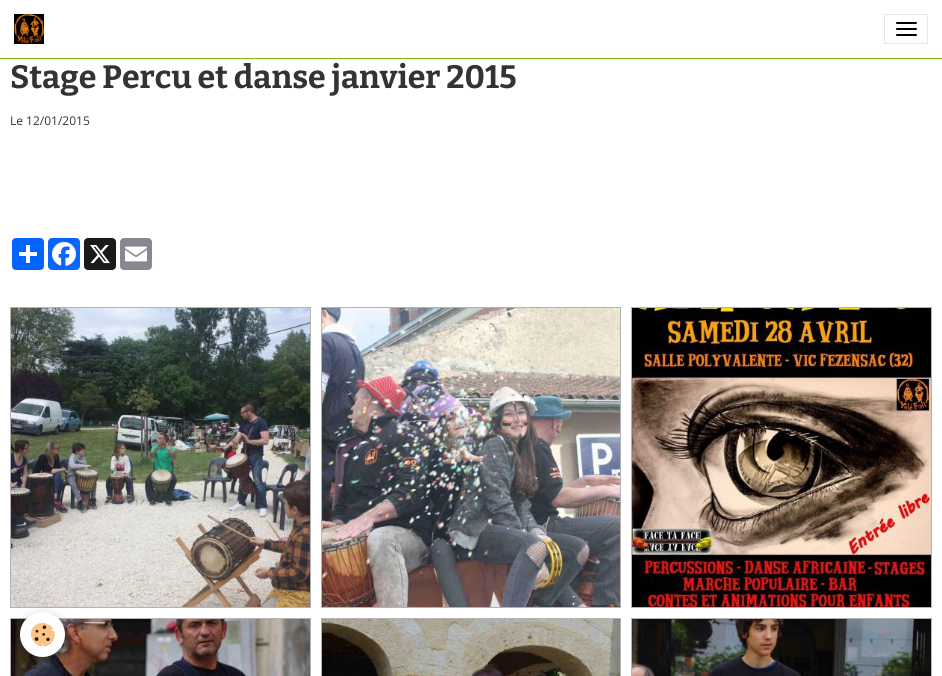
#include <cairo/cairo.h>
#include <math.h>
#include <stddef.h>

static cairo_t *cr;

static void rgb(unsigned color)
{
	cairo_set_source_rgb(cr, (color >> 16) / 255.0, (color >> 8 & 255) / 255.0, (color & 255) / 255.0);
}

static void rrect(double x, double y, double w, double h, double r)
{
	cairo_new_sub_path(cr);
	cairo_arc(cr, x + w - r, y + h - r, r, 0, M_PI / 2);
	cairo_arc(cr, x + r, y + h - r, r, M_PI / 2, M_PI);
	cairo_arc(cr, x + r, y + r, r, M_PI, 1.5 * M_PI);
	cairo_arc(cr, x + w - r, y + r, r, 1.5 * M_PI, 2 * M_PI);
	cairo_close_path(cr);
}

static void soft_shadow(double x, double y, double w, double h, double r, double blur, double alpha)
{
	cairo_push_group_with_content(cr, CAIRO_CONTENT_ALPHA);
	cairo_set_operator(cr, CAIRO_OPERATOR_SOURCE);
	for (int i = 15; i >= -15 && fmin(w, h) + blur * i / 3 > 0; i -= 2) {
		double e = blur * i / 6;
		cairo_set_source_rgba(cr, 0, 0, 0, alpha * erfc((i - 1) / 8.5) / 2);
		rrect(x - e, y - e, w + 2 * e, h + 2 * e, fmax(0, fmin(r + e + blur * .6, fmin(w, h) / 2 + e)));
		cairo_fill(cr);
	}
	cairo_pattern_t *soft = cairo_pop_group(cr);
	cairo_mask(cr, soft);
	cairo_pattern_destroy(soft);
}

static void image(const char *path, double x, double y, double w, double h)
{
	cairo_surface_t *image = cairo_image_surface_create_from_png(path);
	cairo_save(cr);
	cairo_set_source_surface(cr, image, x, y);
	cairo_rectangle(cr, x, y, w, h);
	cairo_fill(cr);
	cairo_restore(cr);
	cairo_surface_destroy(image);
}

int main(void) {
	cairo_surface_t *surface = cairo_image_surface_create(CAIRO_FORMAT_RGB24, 942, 676);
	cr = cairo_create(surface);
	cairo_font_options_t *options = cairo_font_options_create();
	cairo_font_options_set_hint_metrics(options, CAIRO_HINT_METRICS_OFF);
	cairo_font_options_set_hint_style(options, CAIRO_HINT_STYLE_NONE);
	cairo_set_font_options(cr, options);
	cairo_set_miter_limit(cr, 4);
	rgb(0xffffff);
	cairo_paint(cr);
	rgb(0x80bb0b);
	cairo_rectangle(cr, 0, 58, 942, 1);
	cairo_fill(cr);
	image("img/1.png", 14, 14, 30, 30);
	cairo_rectangle(cr, 884.5, 14.5, 43, 29);
	rgb(0xe6e6e6);
	cairo_set_line_width(cr, 1);
	cairo_stroke(cr);
	rgb(0x000000);
	rrect(896, 22, 21, 2, 1);
	cairo_fill(cr);
	rrect(896, 28, 21, 2, 1);
	cairo_fill(cr);
	rrect(896, 34, 21, 2, 1);
	cairo_fill(cr);
	rgb(0x0166ff);
	rrect(12, 238, 32, 32, 4);
	cairo_fill(cr);
	rgb(0xffffff);
	cairo_rectangle(cr, 26, 245, 4, 18);
	cairo_fill(cr);
	cairo_rectangle(cr, 19, 252, 18, 4);
	cairo_fill(cr);
	rgb(0x0866ff);
	rrect(48, 238, 32, 32, 4);
	cairo_fill(cr);
	image("img/2.png", 52, 242, 24, 24);
	rgb(0x1a1a1a);
	rrect(84, 238, 32, 32, 4);
	cairo_fill(cr);
	image("img/3.png", 90, 245, 20, 19);
	rgb(0x888990);
	rrect(120, 238, 32, 32, 4);
	cairo_fill(cr);
	image("img/4.png", 125, 246, 22, 16);
	cairo_rectangle(cr, 10.5, 307.5, 300, 300);
	rgb(0xb3b3b3);
	cairo_stroke(cr);
	image("img/5.png", 11, 308, 299, 299);
	cairo_rectangle(cr, 321.5, 307.5, 299, 300);
	cairo_stroke(cr);
	image("img/6.png", 322, 308, 298, 299);
	cairo_rectangle(cr, 631.5, 307.5, 300, 300);
	cairo_stroke(cr);
	image("img/7.png", 632, 308, 299, 299);
	cairo_rectangle(cr, 10.5, 618.5, 300, 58);
	cairo_stroke(cr);
	image("img/8.png", 11, 619, 299, 57);
	cairo_rectangle(cr, 321.5, 618.5, 299, 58);
	cairo_stroke(cr);
	image("img/9.png", 322, 619, 298, 57);
	cairo_rectangle(cr, 631.5, 618.5, 300, 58);
	cairo_stroke(cr);
	image("img/10.png", 632, 619, 299, 57);
	rgb(0x000000);
	soft_shadow(20, 615, 45, 45, 22.5, 5, 0.24);
	rgb(0xffffff);
	cairo_arc(cr, 42.5, 634.5, 22.5, 0, 2 * M_PI);
	cairo_fill(cr);
	image("img/11.png", 30, 622, 25, 25);
	cairo_select_font_face(cr, "Bitter Thin", CAIRO_FONT_SLANT_NORMAL, CAIRO_FONT_WEIGHT_NORMAL);
	cairo_set_font_size(cr, 32.25);
	rgb(0x333333);
	cairo_move_to(cr, 10, 88);
	cairo_show_text(cr, "Stage Percu et danse janvier 2015");
	cairo_select_font_face(cr, "Open Sans", CAIRO_FONT_SLANT_NORMAL, CAIRO_FONT_WEIGHT_NORMAL);
	cairo_set_font_size(cr, 12);
	cairo_move_to(cr, 10, 125);
	cairo_show_text(cr, "Le 12/01/2015");
	cairo_surface_write_to_png(surface, "page.png");
	cairo_font_options_destroy(options);
	cairo_destroy(cr);
	cairo_surface_destroy(surface);
	return 0;
}
